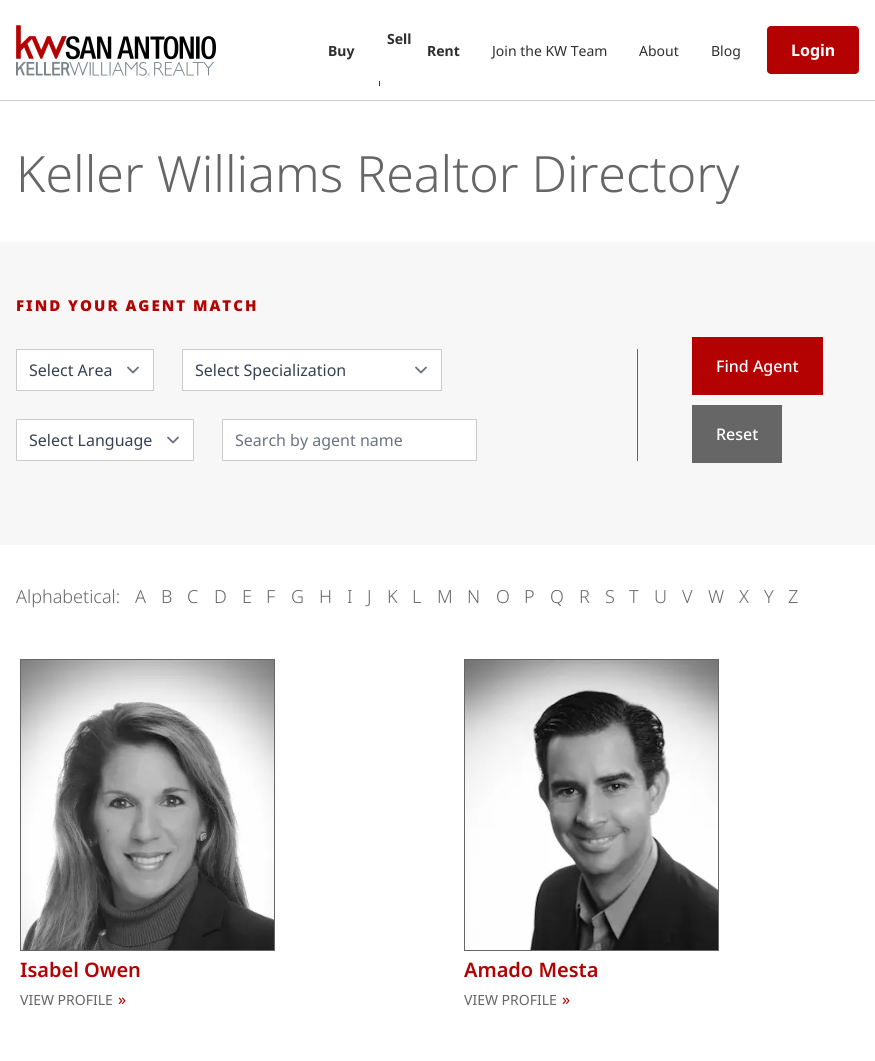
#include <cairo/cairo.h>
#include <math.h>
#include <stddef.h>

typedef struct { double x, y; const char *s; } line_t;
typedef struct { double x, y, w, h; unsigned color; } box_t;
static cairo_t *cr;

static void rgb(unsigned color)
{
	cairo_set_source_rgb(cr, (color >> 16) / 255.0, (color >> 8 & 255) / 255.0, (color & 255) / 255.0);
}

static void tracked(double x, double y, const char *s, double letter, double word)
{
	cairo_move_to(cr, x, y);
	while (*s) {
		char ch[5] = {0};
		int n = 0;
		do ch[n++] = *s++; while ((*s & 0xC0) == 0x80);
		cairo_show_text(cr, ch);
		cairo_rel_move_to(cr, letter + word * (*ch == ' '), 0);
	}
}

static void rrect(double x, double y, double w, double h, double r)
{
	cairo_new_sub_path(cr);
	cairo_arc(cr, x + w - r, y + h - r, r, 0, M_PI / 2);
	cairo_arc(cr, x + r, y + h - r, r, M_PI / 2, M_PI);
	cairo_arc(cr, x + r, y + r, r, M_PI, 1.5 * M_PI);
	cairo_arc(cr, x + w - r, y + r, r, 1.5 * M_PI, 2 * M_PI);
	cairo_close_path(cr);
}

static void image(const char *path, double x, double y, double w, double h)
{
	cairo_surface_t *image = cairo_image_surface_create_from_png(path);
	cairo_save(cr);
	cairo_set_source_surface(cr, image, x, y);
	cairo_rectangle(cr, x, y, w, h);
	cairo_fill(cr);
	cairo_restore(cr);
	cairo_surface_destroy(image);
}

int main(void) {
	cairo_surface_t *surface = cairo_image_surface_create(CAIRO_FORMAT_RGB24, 875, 1061);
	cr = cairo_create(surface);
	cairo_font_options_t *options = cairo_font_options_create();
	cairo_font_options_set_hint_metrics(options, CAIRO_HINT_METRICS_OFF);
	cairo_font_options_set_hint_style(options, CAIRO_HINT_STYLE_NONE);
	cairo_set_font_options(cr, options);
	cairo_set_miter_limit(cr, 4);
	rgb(0xffffff);
	cairo_paint(cr);
	rgb(0xcccccc);
	cairo_rectangle(cr, 0, 100, 875, 1);
	cairo_fill(cr);
	image("img/1.png", 16, 25, 200, 51);
	rgb(0xb40101);
	cairo_rectangle(cr, 379, 81, 1, 5);
	cairo_fill(cr);
	rrect(767, 26, 92, 48, 4);
	cairo_fill(cr);
	{
		static const box_t items[] = {
			{0, 242, 875, 303, 0xf7f7f7},
			{637, 349, 1, 112, 0x666666},
			{17, 350, 136, 40, 0xffffff},
		};
		for (size_t i = 0; i < sizeof items / sizeof *items; i++) {
			rgb(items[i].color);
			cairo_rectangle(cr, items[i].x, items[i].y, items[i].w, items[i].h);
			cairo_fill(cr);
		}
	}
	cairo_new_path(cr);
	cairo_move_to(cr, 128, 367.5);
	cairo_line_to(cr, 133, 372.5);
	cairo_line_to(cr, 138, 367.5);
	rgb(0x6b7280);
	cairo_set_line_width(cr, 1.8);
	cairo_set_line_cap(cr, CAIRO_LINE_CAP_ROUND);
	cairo_set_line_join(cr, CAIRO_LINE_JOIN_ROUND);
	cairo_stroke(cr);
	cairo_rectangle(cr, 16.5, 349.5, 137, 41);
	rgb(0xcccccc);
	cairo_set_line_width(cr, 1);
	cairo_set_line_cap(cr, CAIRO_LINE_CAP_BUTT);
	cairo_set_line_join(cr, CAIRO_LINE_JOIN_MITER);
	cairo_stroke(cr);
	rgb(0xffffff);
	cairo_rectangle(cr, 183, 350, 258, 40);
	cairo_fill(cr);
	cairo_new_path(cr);
	cairo_move_to(cr, 416, 367.5);
	cairo_line_to(cr, 421, 372.5);
	cairo_line_to(cr, 426, 367.5);
	rgb(0x6b7280);
	cairo_set_line_width(cr, 1.8);
	cairo_set_line_cap(cr, CAIRO_LINE_CAP_ROUND);
	cairo_set_line_join(cr, CAIRO_LINE_JOIN_ROUND);
	cairo_stroke(cr);
	cairo_rectangle(cr, 182.5, 349.5, 259, 41);
	rgb(0xcccccc);
	cairo_set_line_width(cr, 1);
	cairo_set_line_cap(cr, CAIRO_LINE_CAP_BUTT);
	cairo_set_line_join(cr, CAIRO_LINE_JOIN_MITER);
	cairo_stroke(cr);
	rgb(0xffffff);
	cairo_rectangle(cr, 17, 420, 176, 40);
	cairo_fill(cr);
	cairo_new_path(cr);
	cairo_move_to(cr, 168, 437.5);
	cairo_line_to(cr, 173, 442.5);
	cairo_line_to(cr, 178, 437.5);
	rgb(0x6b7280);
	cairo_set_line_width(cr, 1.8);
	cairo_set_line_cap(cr, CAIRO_LINE_CAP_ROUND);
	cairo_set_line_join(cr, CAIRO_LINE_JOIN_ROUND);
	cairo_stroke(cr);
	cairo_rectangle(cr, 16.5, 419.5, 177, 41);
	rgb(0xcccccc);
	cairo_set_line_width(cr, 1);
	cairo_set_line_cap(cr, CAIRO_LINE_CAP_BUTT);
	cairo_set_line_join(cr, CAIRO_LINE_JOIN_MITER);
	cairo_stroke(cr);
	rgb(0xffffff);
	cairo_rectangle(cr, 222.5, 419.5, 254, 41);
	cairo_fill_preserve(cr);
	rgb(0xcccccc);
	cairo_stroke(cr);
	rgb(0xb40101);
	cairo_rectangle(cr, 692, 337, 131, 58);
	cairo_fill(cr);
	rgb(0x666666);
	cairo_rectangle(cr, 692, 405, 90, 58);
	cairo_fill(cr);
	cairo_rectangle(cr, 20.5, 659.5, 254, 291);
	cairo_stroke(cr);
	image("img/2.png", 21, 660, 253, 290);
	cairo_rectangle(cr, 464.5, 659.5, 254, 291);
	cairo_stroke(cr);
	image("img/3.png", 465, 660, 253, 290);
	cairo_select_font_face(cr, "Noto Sans", CAIRO_FONT_SLANT_NORMAL, CAIRO_FONT_WEIGHT_BOLD);
	cairo_set_font_size(cr, 14);
	rgb(0x2f2f2f);
	{
		static const line_t items[] = {
			{387, 44, "Sell"},
			{328, 56, "Buy"},
			{427, 56, "Rent"},
		};
		for (size_t i = 0; i < sizeof items / sizeof *items; i++) {
			cairo_move_to(cr, items[i].x, items[i].y);
			cairo_show_text(cr, items[i].s);
		}
	}
	cairo_select_font_face(cr, "Noto Sans", CAIRO_FONT_SLANT_NORMAL, CAIRO_FONT_WEIGHT_NORMAL);
	{
		static const line_t items[] = {
			{492, 56, "Join the KW Team"},
			{639, 56, "About"},
			{711, 56, "Blog"},
		};
		for (size_t i = 0; i < sizeof items / sizeof *items; i++) {
			cairo_move_to(cr, items[i].x, items[i].y);
			cairo_show_text(cr, items[i].s);
		}
	}
	cairo_select_font_face(cr, "Noto Sans", CAIRO_FONT_SLANT_NORMAL, CAIRO_FONT_WEIGHT_BOLD);
	cairo_set_font_size(cr, 16);
	rgb(0xffffff);
	cairo_move_to(cr, 791, 56);
	cairo_show_text(cr, "Login");
	cairo_select_font_face(cr, "Noto Sans Light", CAIRO_FONT_SLANT_NORMAL, CAIRO_FONT_WEIGHT_NORMAL);
	cairo_set_font_size(cr, 50);
	rgb(0x666666);
	cairo_move_to(cr, 16, 192);
	cairo_show_text(cr, "Keller Williams Realtor Directory");
	cairo_select_font_face(cr, "Noto Sans Black", CAIRO_FONT_SLANT_NORMAL, CAIRO_FONT_WEIGHT_NORMAL);
	cairo_set_font_size(cr, 15);
	rgb(0xb40101);
	tracked(16, 311, "FIND YOUR AGENT MATCH", 2, 0);
	cairo_select_font_face(cr, "Noto Sans", CAIRO_FONT_SLANT_NORMAL, CAIRO_FONT_WEIGHT_NORMAL);
	cairo_set_font_size(cr, 16);
	rgb(0x374151);
	{
		static const line_t items[] = {
			{29, 376, "Select Area"},
			{195, 376, "Select Specialization"},
			{29, 446, "Select Language"},
		};
		for (size_t i = 0; i < sizeof items / sizeof *items; i++) {
			cairo_move_to(cr, items[i].x, items[i].y);
			cairo_show_text(cr, items[i].s);
		}
	}
	rgb(0x6b7280);
	cairo_move_to(cr, 235, 446);
	cairo_show_text(cr, "Search by agent name");
	cairo_select_font_face(cr, "Noto Sans Medium", CAIRO_FONT_SLANT_NORMAL, CAIRO_FONT_WEIGHT_NORMAL);
	rgb(0xffffff);
	cairo_move_to(cr, 716, 372);
	cairo_show_text(cr, "Find Agent");
	cairo_move_to(cr, 716, 440);
	cairo_show_text(cr, "Reset");
	cairo_select_font_face(cr, "Noto Sans Light", CAIRO_FONT_SLANT_NORMAL, CAIRO_FONT_WEIGHT_NORMAL);
	cairo_set_font_size(cr, 18);
	rgb(0x666666);
	{
		static const line_t items[] = {
			{16, 603, "Alphabetical:"},
			{135, 603, "A"},
			{161, 603, "B"},
			{187, 603, "C"},
			{214, 603, "D"},
			{242, 603, "E"},
			{266, 603, "F"},
			{291, 603, "G"},
			{319, 603, "H"},
			{347, 603, "I"},
			{367, 603, "J"},
			{387, 603, "K"},
			{412, 603, "L"},
			{437, 603, "M"},
			{467, 603, "N"},
			{496, 603, "O"},
			{524, 603, "P"},
			{550, 603, "Q"},
			{579, 603, "R"},
			{605, 603, "S"},
			{629, 603, "T"},
			{654, 603, "U"},
			{682, 603, "V"},
			{708, 603, "W"},
			{739, 603, "X"},
			{764, 603, "Y"},
			{788, 603, "Z"},
		};
		for (size_t i = 0; i < sizeof items / sizeof *items; i++) {
			cairo_move_to(cr, items[i].x, items[i].y);
			cairo_show_text(cr, items[i].s);
		}
	}
	cairo_select_font_face(cr, "Noto Sans SemiBold", CAIRO_FONT_SLANT_NORMAL, CAIRO_FONT_WEIGHT_NORMAL);
	cairo_set_font_size(cr, 20);
	rgb(0xb40101);
	cairo_move_to(cr, 20, 977);
	cairo_show_text(cr, "Isabel Owen");
	cairo_select_font_face(cr, "Noto Sans", CAIRO_FONT_SLANT_NORMAL, CAIRO_FONT_WEIGHT_NORMAL);
	cairo_set_font_size(cr, 14);
	rgb(0x666666);
	cairo_move_to(cr, 20, 1005);
	cairo_show_text(cr, "VIEW PROFILE");
	cairo_set_font_size(cr, 16);
	rgb(0xb40101);
	cairo_move_to(cr, 118, 1005);
	cairo_show_text(cr, "»");
	cairo_select_font_face(cr, "Noto Sans SemiBold", CAIRO_FONT_SLANT_NORMAL, CAIRO_FONT_WEIGHT_NORMAL);
	cairo_set_font_size(cr, 20);
	cairo_move_to(cr, 464, 977);
	cairo_show_text(cr, "Amado Mesta");
	cairo_select_font_face(cr, "Noto Sans", CAIRO_FONT_SLANT_NORMAL, CAIRO_FONT_WEIGHT_NORMAL);
	cairo_set_font_size(cr, 14);
	rgb(0x666666);
	cairo_move_to(cr, 464, 1005);
	cairo_show_text(cr, "VIEW PROFILE");
	cairo_set_font_size(cr, 16);
	rgb(0xb40101);
	cairo_move_to(cr, 562, 1005);
	cairo_show_text(cr, "»");
	cairo_surface_write_to_png(surface, "page.png");
	cairo_font_options_destroy(options);
	cairo_destroy(cr);
	cairo_surface_destroy(surface);
	return 0;
}
